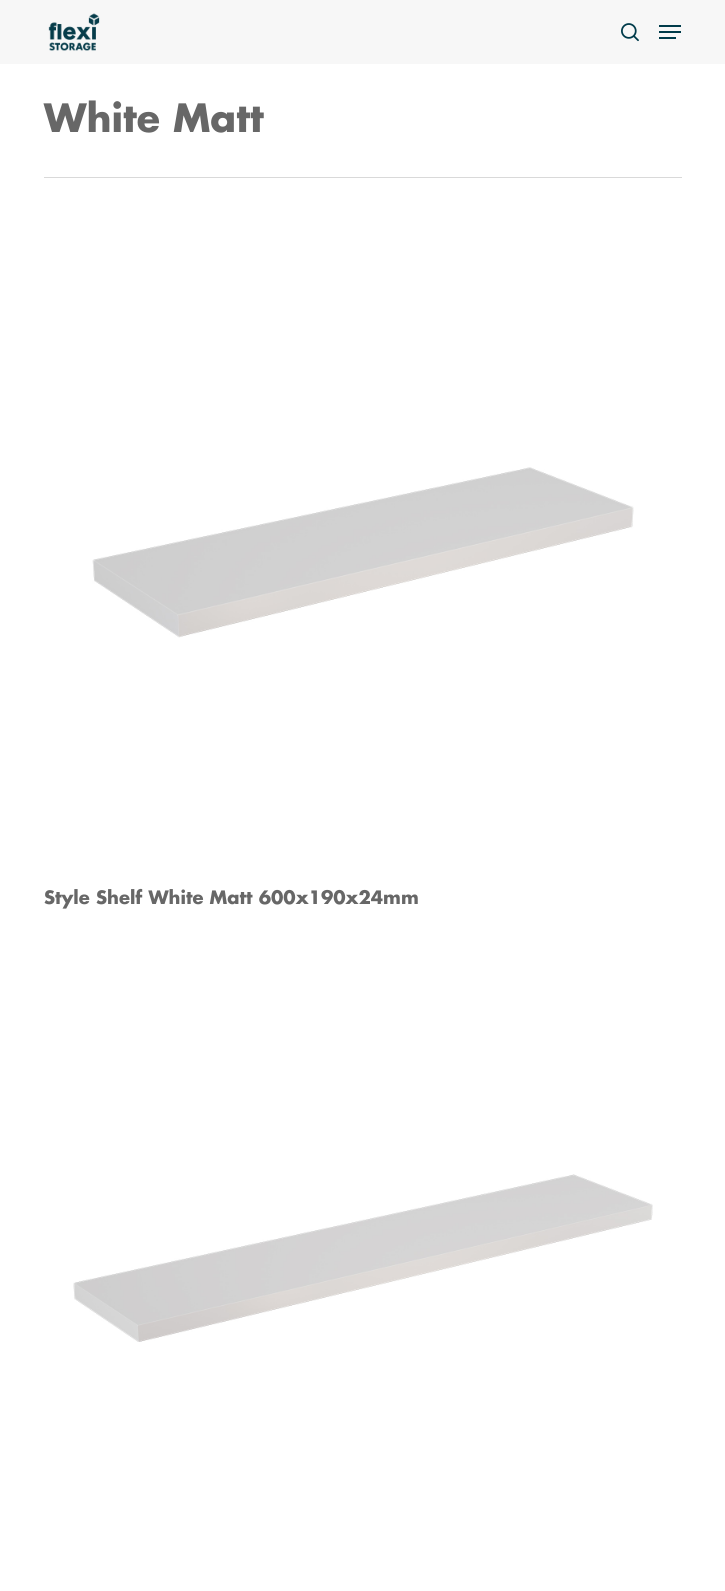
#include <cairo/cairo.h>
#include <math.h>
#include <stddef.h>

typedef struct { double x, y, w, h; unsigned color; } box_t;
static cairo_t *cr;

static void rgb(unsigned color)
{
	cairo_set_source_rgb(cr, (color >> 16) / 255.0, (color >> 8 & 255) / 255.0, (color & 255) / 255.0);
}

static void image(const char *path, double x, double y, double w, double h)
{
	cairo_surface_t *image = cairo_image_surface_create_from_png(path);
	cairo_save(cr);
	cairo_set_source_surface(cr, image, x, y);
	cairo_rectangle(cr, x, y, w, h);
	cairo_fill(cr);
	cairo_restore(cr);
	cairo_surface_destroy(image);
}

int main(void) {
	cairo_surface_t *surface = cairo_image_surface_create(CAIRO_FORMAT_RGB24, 725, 1591);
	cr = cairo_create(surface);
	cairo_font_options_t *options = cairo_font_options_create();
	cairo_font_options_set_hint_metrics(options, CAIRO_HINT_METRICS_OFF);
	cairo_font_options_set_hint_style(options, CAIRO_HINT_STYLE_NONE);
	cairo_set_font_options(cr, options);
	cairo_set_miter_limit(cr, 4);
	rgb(0xffffff);
	cairo_paint(cr);
	rgb(0xf7f7f7);
	cairo_rectangle(cr, 0, 0, 725, 64);
	cairo_fill(cr);
	image("img/1.png", 48, 13, 52, 38);
	image("img/2.png", 621, 23, 18, 19);
	{
		static const box_t items[] = {
			{659, 25, 22, 2, 0x003b4a},
			{659, 37, 17, 2, 0x003b4a},
			{659, 31, 22, 2, 0x003b4a},
			{44, 177, 638, 1, 0xd9d9d9},
		};
		for (size_t i = 0; i < sizeof items / sizeof *items; i++) {
			rgb(items[i].color);
			cairo_rectangle(cr, items[i].x, items[i].y, items[i].w, items[i].h);
			cairo_fill(cr);
		}
	}
	image("img/3.png", 92, 467, 542, 171);
	image("img/4.png", 73, 1174, 580, 168);
	cairo_select_font_face(cr, "Futura", CAIRO_FONT_SLANT_NORMAL, CAIRO_FONT_WEIGHT_BOLD);
	cairo_set_font_size(cr, 38);
	rgb(0x676767);
	cairo_move_to(cr, 44, 132);
	cairo_show_text(cr, "White Matt");
	cairo_set_font_size(cr, 18);
	cairo_move_to(cr, 44, 904);
	cairo_show_text(cr, "Style Shelf White Matt 600x190x24mm");
	cairo_surface_write_to_png(surface, "page.png");
	cairo_font_options_destroy(options);
	cairo_destroy(cr);
	cairo_surface_destroy(surface);
	return 0;
}
